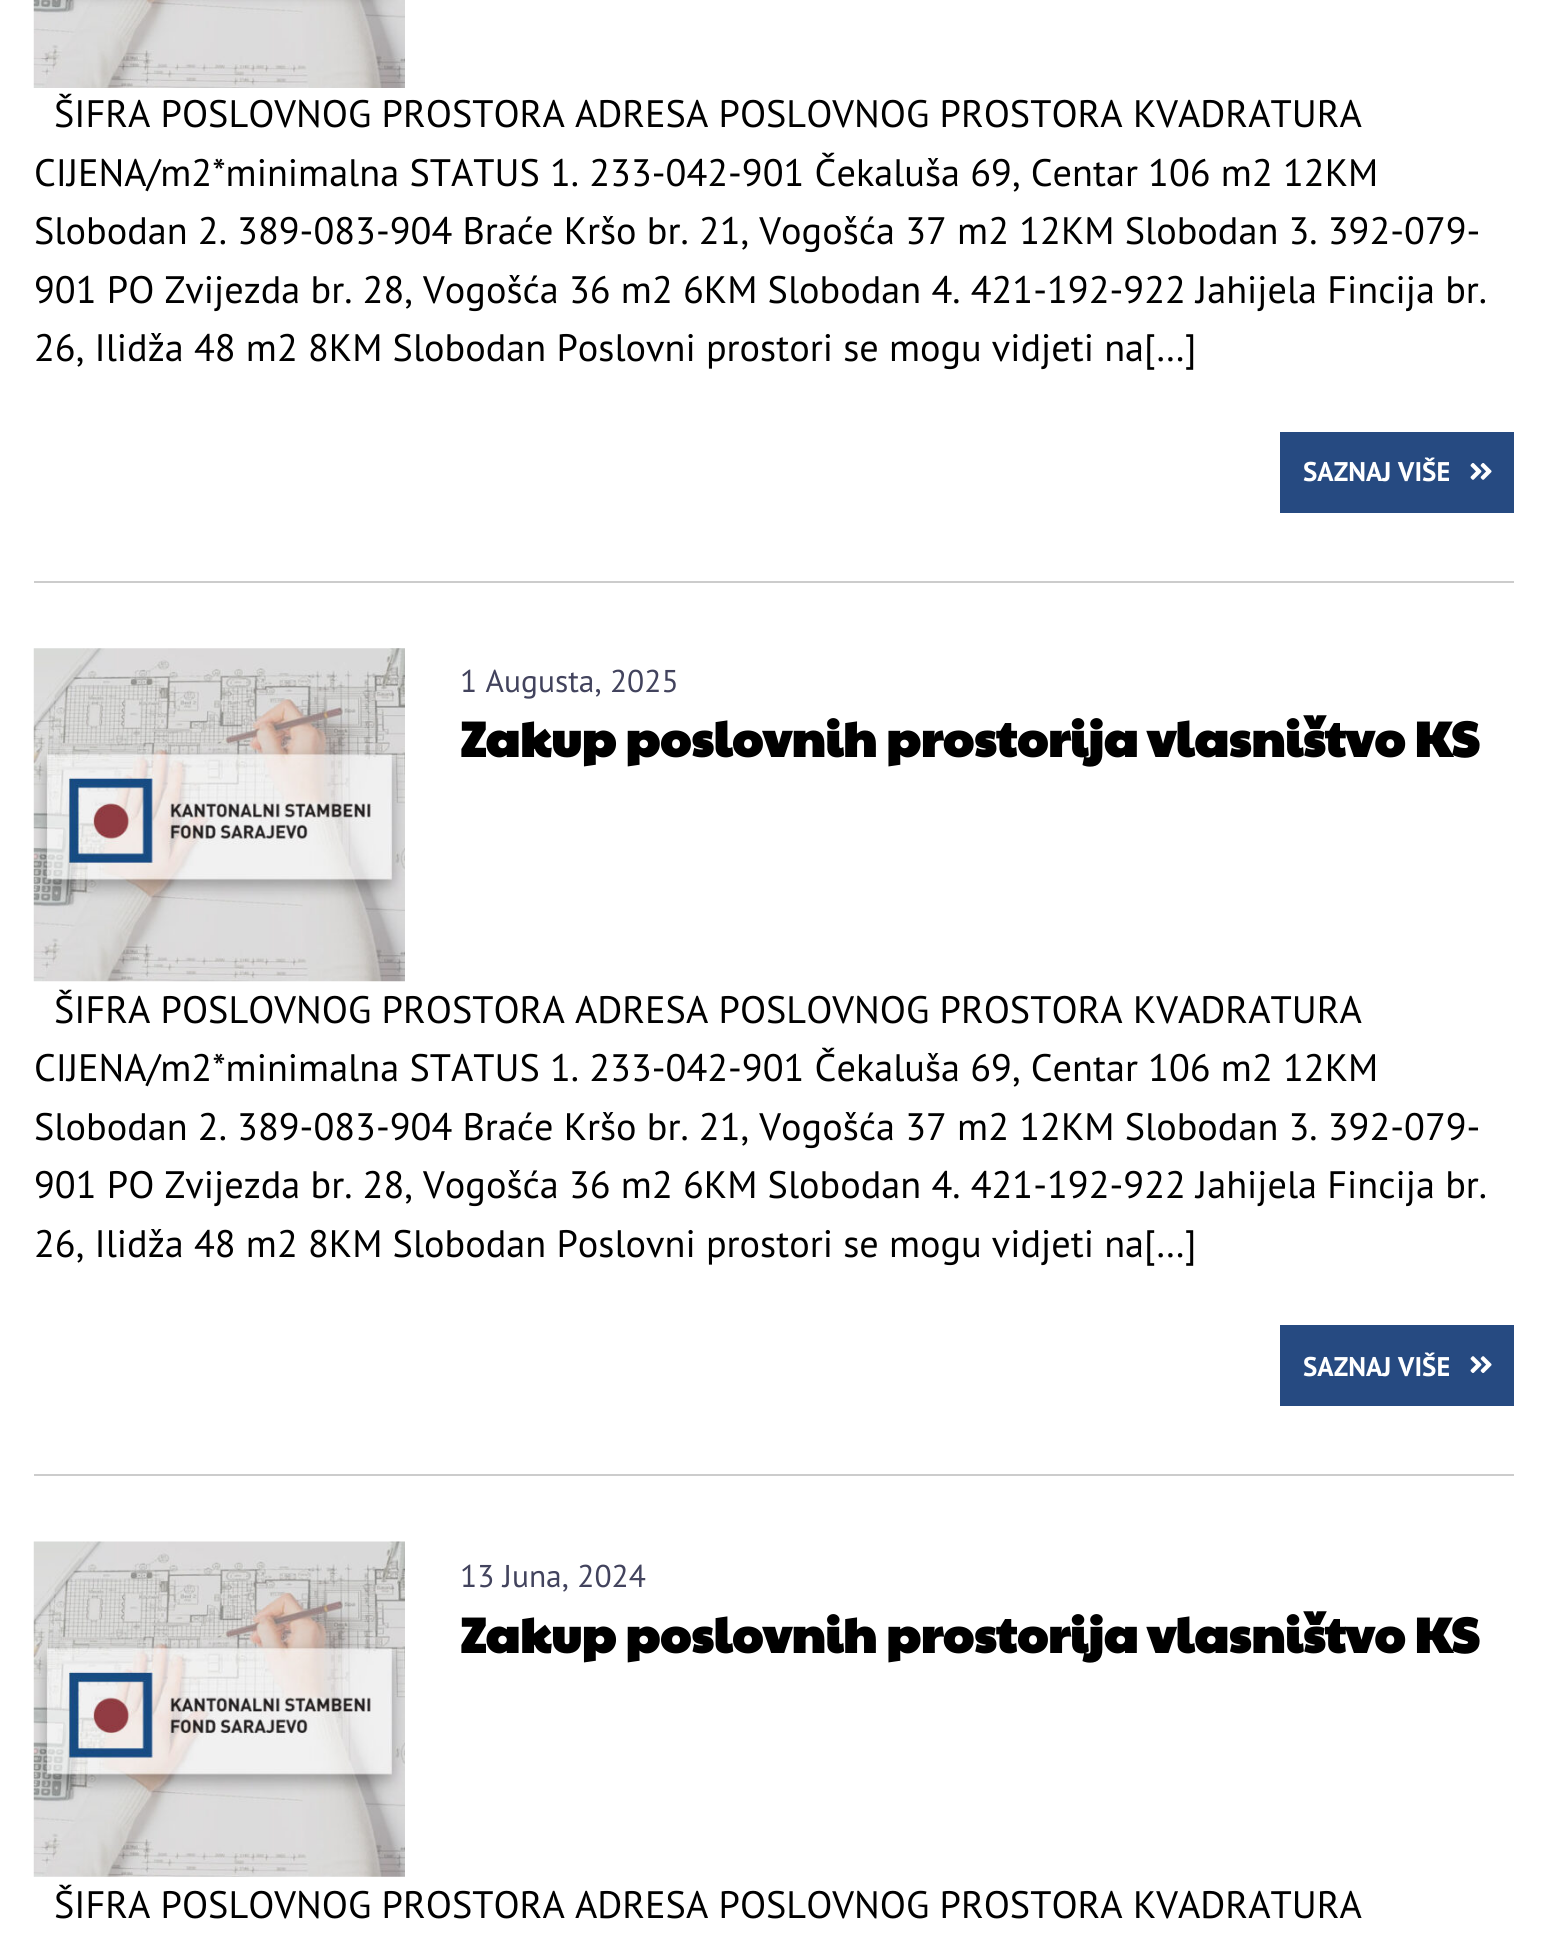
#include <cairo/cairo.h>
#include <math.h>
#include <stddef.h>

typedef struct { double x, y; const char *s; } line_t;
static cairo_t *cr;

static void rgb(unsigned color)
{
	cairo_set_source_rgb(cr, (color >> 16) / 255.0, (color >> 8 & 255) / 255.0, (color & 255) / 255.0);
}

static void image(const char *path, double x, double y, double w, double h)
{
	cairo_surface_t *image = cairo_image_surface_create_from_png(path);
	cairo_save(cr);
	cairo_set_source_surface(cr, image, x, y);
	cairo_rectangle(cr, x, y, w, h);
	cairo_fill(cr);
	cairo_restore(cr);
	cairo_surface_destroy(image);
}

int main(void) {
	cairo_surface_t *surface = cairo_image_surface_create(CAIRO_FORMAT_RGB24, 1546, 1953);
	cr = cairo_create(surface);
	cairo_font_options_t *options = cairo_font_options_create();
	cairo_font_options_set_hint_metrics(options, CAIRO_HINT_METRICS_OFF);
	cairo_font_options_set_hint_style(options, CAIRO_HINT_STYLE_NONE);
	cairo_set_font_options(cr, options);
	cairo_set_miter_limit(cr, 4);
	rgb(0xffffff);
	cairo_paint(cr);
	rgb(0xcccccc);
	cairo_rectangle(cr, 34, 581, 1480, 2);
	cairo_fill(cr);
	image("img/1.png", 33, 0, 372, 88);
	rgb(0x264a81);
	cairo_rectangle(cr, 1280, 432, 234, 81);
	cairo_fill(cr);
	image("img/2.png", 1470, 463, 22, 17);
	rgb(0xcccccc);
	cairo_rectangle(cr, 34, 1474, 1480, 2);
	cairo_fill(cr);
	image("img/3.png", 33, 648, 372, 334);
	rgb(0x264a81);
	cairo_rectangle(cr, 1280, 1325, 234, 81);
	cairo_fill(cr);
	image("img/4.png", 1470, 1356, 22, 17);
	image("img/5.png", 33, 1541, 372, 336);
	cairo_select_font_face(cr, "PT Sans", CAIRO_FONT_SLANT_NORMAL, CAIRO_FONT_WEIGHT_NORMAL);
	cairo_set_font_size(cr, 38.25);
	rgb(0x000000);
	{
		static const line_t items[] = {
			{54, 127, "ŠIFRA POSLOVNOG PROSTORA ADRESA POSLOVNOG PROSTORA KVADRATURA"},
			{34, 186, "CIJENA/m2*minimalna STATUS 1. 233-042-901 Čekaluša 69, Centar 106 m2 12KM"},
			{34, 244, "Slobodan 2. 389-083-904 Braće Kršo br. 21, Vogošća 37 m2 12KM Slobodan 3. 392-079-"},
			{34, 303, "901 PO Zvijezda br. 28, Vogošća 36 m2 6KM Slobodan 4. 421-192-922 Jahijela Fincija br."},
			{34, 361, "26, Ilidža 48 m2 8KM Slobodan Poslovni prostori se mogu vidjeti na[…]"},
		};
		for (size_t i = 0; i < sizeof items / sizeof *items; i++) {
			cairo_move_to(cr, items[i].x, items[i].y);
			cairo_show_text(cr, items[i].s);
		}
	}
	cairo_select_font_face(cr, "PT Sans", CAIRO_FONT_SLANT_NORMAL, CAIRO_FONT_WEIGHT_BOLD);
	cairo_set_font_size(cr, 27);
	rgb(0xffffff);
	cairo_move_to(cr, 1303, 481);
	cairo_show_text(cr, "SAZNAJ VIŠE");
	cairo_select_font_face(cr, "PT Sans", CAIRO_FONT_SLANT_NORMAL, CAIRO_FONT_WEIGHT_NORMAL);
	cairo_set_font_size(cr, 31.5);
	rgb(0x42435d);
	cairo_move_to(cr, 460, 692);
	cairo_show_text(cr, "1 Augusta, 2025");
	cairo_select_font_face(cr, "Paytone One", CAIRO_FONT_SLANT_NORMAL, CAIRO_FONT_WEIGHT_BOLD);
	cairo_set_font_size(cr, 49.5);
	rgb(0x000000);
	cairo_move_to(cr, 460, 757);
	cairo_show_text(cr, "Zakup poslovnih prostorija vlasništvo KS");
	cairo_select_font_face(cr, "PT Sans", CAIRO_FONT_SLANT_NORMAL, CAIRO_FONT_WEIGHT_NORMAL);
	cairo_set_font_size(cr, 38.25);
	{
		static const line_t items[] = {
			{54, 1023, "ŠIFRA POSLOVNOG PROSTORA ADRESA POSLOVNOG PROSTORA KVADRATURA"},
			{34, 1081, "CIJENA/m2*minimalna STATUS 1. 233-042-901 Čekaluša 69, Centar 106 m2 12KM"},
			{34, 1140, "Slobodan 2. 389-083-904 Braće Kršo br. 21, Vogošća 37 m2 12KM Slobodan 3. 392-079-"},
			{34, 1198, "901 PO Zvijezda br. 28, Vogošća 36 m2 6KM Slobodan 4. 421-192-922 Jahijela Fincija br."},
			{34, 1257, "26, Ilidža 48 m2 8KM Slobodan Poslovni prostori se mogu vidjeti na[…]"},
		};
		for (size_t i = 0; i < sizeof items / sizeof *items; i++) {
			cairo_move_to(cr, items[i].x, items[i].y);
			cairo_show_text(cr, items[i].s);
		}
	}
	cairo_select_font_face(cr, "PT Sans", CAIRO_FONT_SLANT_NORMAL, CAIRO_FONT_WEIGHT_BOLD);
	cairo_set_font_size(cr, 27);
	rgb(0xffffff);
	cairo_move_to(cr, 1303, 1376);
	cairo_show_text(cr, "SAZNAJ VIŠE");
	cairo_select_font_face(cr, "PT Sans", CAIRO_FONT_SLANT_NORMAL, CAIRO_FONT_WEIGHT_NORMAL);
	cairo_set_font_size(cr, 31.5);
	rgb(0x42435d);
	cairo_move_to(cr, 460, 1587);
	cairo_show_text(cr, "13 Juna, 2024");
	cairo_select_font_face(cr, "Paytone One", CAIRO_FONT_SLANT_NORMAL, CAIRO_FONT_WEIGHT_BOLD);
	cairo_set_font_size(cr, 49.5);
	rgb(0x000000);
	cairo_move_to(cr, 460, 1653);
	cairo_show_text(cr, "Zakup poslovnih prostorija vlasništvo KS");
	cairo_select_font_face(cr, "PT Sans", CAIRO_FONT_SLANT_NORMAL, CAIRO_FONT_WEIGHT_NORMAL);
	cairo_set_font_size(cr, 38.25);
	cairo_move_to(cr, 54, 1918);
	cairo_show_text(cr, "ŠIFRA POSLOVNOG PROSTORA ADRESA POSLOVNOG PROSTORA KVADRATURA");
	cairo_surface_write_to_png(surface, "page.png");
	cairo_font_options_destroy(options);
	cairo_destroy(cr);
	cairo_surface_destroy(surface);
	return 0;
}
